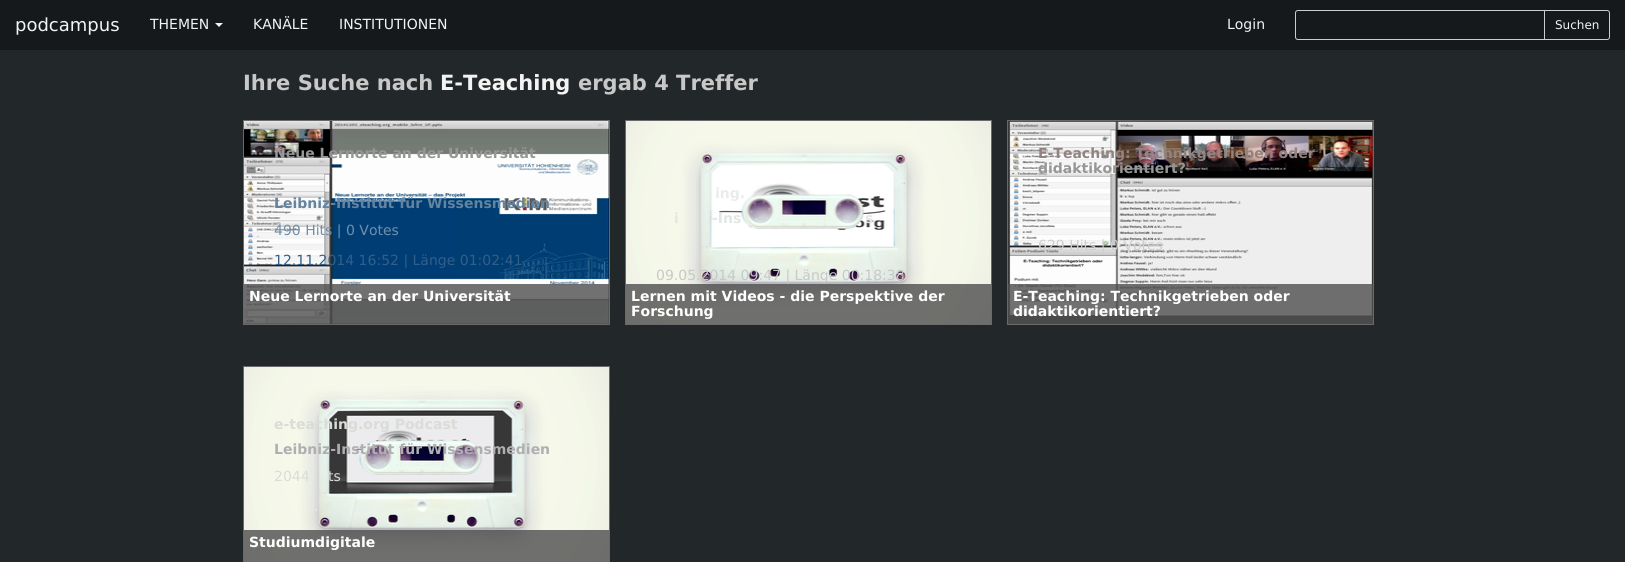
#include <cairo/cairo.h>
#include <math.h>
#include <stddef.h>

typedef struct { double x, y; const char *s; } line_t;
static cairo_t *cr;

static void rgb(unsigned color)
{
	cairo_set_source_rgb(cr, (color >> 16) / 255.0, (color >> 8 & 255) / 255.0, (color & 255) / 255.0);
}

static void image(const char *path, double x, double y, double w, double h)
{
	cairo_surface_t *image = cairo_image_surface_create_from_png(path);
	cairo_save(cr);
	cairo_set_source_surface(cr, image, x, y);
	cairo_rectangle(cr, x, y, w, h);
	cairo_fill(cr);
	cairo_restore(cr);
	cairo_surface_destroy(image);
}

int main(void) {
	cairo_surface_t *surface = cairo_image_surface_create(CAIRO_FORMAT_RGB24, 1625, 562);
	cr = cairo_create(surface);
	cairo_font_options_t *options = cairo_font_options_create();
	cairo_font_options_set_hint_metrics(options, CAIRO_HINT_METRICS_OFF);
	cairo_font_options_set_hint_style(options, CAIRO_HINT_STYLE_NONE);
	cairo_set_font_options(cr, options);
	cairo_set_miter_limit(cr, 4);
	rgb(0x22272a);
	cairo_paint(cr);
	rgb(0x16191b);
	cairo_rectangle(cr, 0, 0, 1625, 50);
	cairo_fill(cr);
	rgb(0xf3f3f3);
	cairo_new_path(cr);
	cairo_move_to(cr, 215, 23);
	cairo_line_to(cr, 223, 23);
	cairo_line_to(cr, 219, 27);
	cairo_close_path(cr);
	cairo_fill(cr);
	cairo_new_path(cr);
	cairo_move_to(cr, 1544.5, 10.5);
	cairo_line_to(cr, 1607, 10.5);
	cairo_curve_to(cr, 1608.5, 10.5, 1609.5, 11.5, 1609.5, 13);
	cairo_line_to(cr, 1609.5, 37);
	cairo_curve_to(cr, 1609.5, 38.5, 1608.5, 39.5, 1607, 39.5);
	cairo_line_to(cr, 1544.5, 39.5);
	cairo_close_path(cr);
	rgb(0xcccccc);
	cairo_set_line_width(cr, 1);
	cairo_stroke(cr);
	cairo_new_path(cr);
	cairo_move_to(cr, 1298, 10.5);
	cairo_line_to(cr, 1544.5, 10.5);
	cairo_line_to(cr, 1544.5, 39.5);
	cairo_line_to(cr, 1298, 39.5);
	cairo_curve_to(cr, 1296.5, 39.5, 1295.5, 38.5, 1295.5, 37);
	cairo_line_to(cr, 1295.5, 13);
	cairo_curve_to(cr, 1295.5, 11.5, 1296.5, 10.5, 1298, 10.5);
	cairo_close_path(cr);
	cairo_stroke(cr);
	cairo_rectangle(cr, 243.5, 120.5, 366, 204);
	rgb(0x696969);
	cairo_stroke(cr);
	image("img/1.png", 244, 121, 365, 203);
	cairo_set_source_rgba(cr, 0.306, 0.306, 0.306, 0.8);
	cairo_rectangle(cr, 244, 284, 365, 40);
	cairo_fill(cr);
	cairo_rectangle(cr, 625.5, 120.5, 366, 204);
	rgb(0x696969);
	cairo_stroke(cr);
	image("img/2.png", 626, 121, 365, 203);
	cairo_set_source_rgba(cr, 0.306, 0.306, 0.306, 0.8);
	cairo_rectangle(cr, 626, 284, 365, 40);
	cairo_fill(cr);
	cairo_rectangle(cr, 1007.5, 120.5, 366, 204);
	rgb(0x696969);
	cairo_stroke(cr);
	image("img/3.png", 1008, 121, 365, 203);
	cairo_set_source_rgba(cr, 0.306, 0.306, 0.306, 0.8);
	cairo_rectangle(cr, 1008, 284, 365, 40);
	cairo_fill(cr);
	cairo_rectangle(cr, 243.5, 366.5, 366, 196);
	rgb(0x696969);
	cairo_stroke(cr);
	image("img/4.png", 244, 367, 365, 195);
	cairo_set_source_rgba(cr, 0.306, 0.306, 0.306, 0.8);
	cairo_rectangle(cr, 244, 530, 365, 32);
	cairo_fill(cr);
	cairo_select_font_face(cr, "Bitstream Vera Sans", CAIRO_FONT_SLANT_NORMAL, CAIRO_FONT_WEIGHT_NORMAL);
	cairo_set_font_size(cr, 18);
	rgb(0xf3f3f3);
	cairo_move_to(cr, 15, 31);
	cairo_show_text(cr, "podcampus");
	cairo_set_font_size(cr, 14);
	{
		static const line_t items[] = {
			{150, 29, "THEMEN"},
			{253, 29, "KANÄLE"},
			{339, 29, "INSTITUTIONEN"},
			{1227, 29, "Login"},
		};
		for (size_t i = 0; i < sizeof items / sizeof *items; i++) {
			cairo_move_to(cr, items[i].x, items[i].y);
			cairo_show_text(cr, items[i].s);
		}
	}
	cairo_set_font_size(cr, 12);
	cairo_move_to(cr, 1555, 29);
	cairo_show_text(cr, "Suchen");
	cairo_select_font_face(cr, "Bitstream Vera Sans", CAIRO_FONT_SLANT_NORMAL, CAIRO_FONT_WEIGHT_BOLD);
	cairo_set_font_size(cr, 21);
	rgb(0xc8c8c8);
	cairo_move_to(cr, 243, 90);
	cairo_show_text(cr, "Ihre Suche nach");
	rgb(0xf3f3f3);
	cairo_move_to(cr, 440, 90);
	cairo_show_text(cr, "E-Teaching");
	rgb(0xc8c8c8);
	cairo_move_to(cr, 578, 90);
	cairo_show_text(cr, "ergab 4 Treffer");
	cairo_set_font_size(cr, 14);
	rgb(0x959895);
	cairo_move_to(cr, 274, 158);
	cairo_show_text(cr, "Neue Lernorte an der Universität");
	rgb(0x63839f);
	cairo_move_to(cr, 274, 208);
	cairo_show_text(cr, "Leibniz-Institut für Wissensmedien");
	cairo_select_font_face(cr, "Bitstream Vera Sans", CAIRO_FONT_SLANT_NORMAL, CAIRO_FONT_WEIGHT_NORMAL);
	rgb(0x718faa);
	cairo_move_to(cr, 274, 235);
	cairo_show_text(cr, "490 Hits | 0 Votes");
	rgb(0x305f8a);
	cairo_move_to(cr, 274, 265);
	cairo_show_text(cr, "12.11.2014 16:52 | Länge 01:02:41");
	cairo_select_font_face(cr, "Bitstream Vera Sans", CAIRO_FONT_SLANT_NORMAL, CAIRO_FONT_WEIGHT_BOLD);
	rgb(0xffffff);
	cairo_move_to(cr, 249, 301);
	cairo_show_text(cr, "Neue Lernorte an der Universität");
	rgb(0xe9ece9);
	cairo_move_to(cr, 715, 198);
	cairo_show_text(cr, "ing.");
	rgb(0xe2e7e3);
	{
		static const line_t items[] = {
			{674, 223, "i"},
			{712, 223, "-Ins"},
			{865, 223, "s"},
		};
		for (size_t i = 0; i < sizeof items / sizeof *items; i++) {
			cairo_move_to(cr, items[i].x, items[i].y);
			cairo_show_text(cr, items[i].s);
		}
	}
	cairo_select_font_face(cr, "Bitstream Vera Sans", CAIRO_FONT_SLANT_NORMAL, CAIRO_FONT_WEIGHT_NORMAL);
	rgb(0xc8c8c8);
	cairo_move_to(cr, 656, 280);
	cairo_show_text(cr, "09.05.2014 09:47 | Länge 00:18:38");
	cairo_select_font_face(cr, "Bitstream Vera Sans", CAIRO_FONT_SLANT_NORMAL, CAIRO_FONT_WEIGHT_BOLD);
	rgb(0xffffff);
	cairo_move_to(cr, 631, 301);
	cairo_show_text(cr, "Lernen mit Videos - die Perspektive der");
	cairo_move_to(cr, 631, 316);
	cairo_show_text(cr, "Forschung");
	rgb(0x928280);
	cairo_move_to(cr, 1038, 158);
	cairo_show_text(cr, "E-Teaching: Technikgetrieben oder");
	rgb(0x959895);
	cairo_move_to(cr, 1038, 173);
	cairo_show_text(cr, "didaktikorientiert?");
	rgb(0xe9ece9);
	cairo_move_to(cr, 1121, 198);
	cairo_show_text(cr, ".");
	cairo_select_font_face(cr, "Bitstream Vera Sans", CAIRO_FONT_SLANT_NORMAL, CAIRO_FONT_WEIGHT_NORMAL);
	rgb(0xcecece);
	cairo_move_to(cr, 1038, 250);
	cairo_show_text(cr, "629 Hits | 0 Votes");
	cairo_select_font_face(cr, "Bitstream Vera Sans", CAIRO_FONT_SLANT_NORMAL, CAIRO_FONT_WEIGHT_BOLD);
	rgb(0xffffff);
	cairo_move_to(cr, 1013, 301);
	cairo_show_text(cr, "E-Teaching: Technikgetrieben oder");
	cairo_move_to(cr, 1013, 316);
	cairo_show_text(cr, "didaktikorientiert?");
	rgb(0xd9dcd7);
	cairo_move_to(cr, 274, 429);
	cairo_show_text(cr, "e-teaching.org Podcast");
	rgb(0xafaeb2);
	cairo_move_to(cr, 274, 454);
	cairo_show_text(cr, "Leibniz-Institut für Wissensmedien");
	cairo_select_font_face(cr, "Bitstream Vera Sans", CAIRO_FONT_SLANT_NORMAL, CAIRO_FONT_WEIGHT_NORMAL);
	rgb(0xd9dcd7);
	cairo_move_to(cr, 274, 481);
	cairo_show_text(cr, "2044");
	cairo_move_to(cr, 328, 481);
	cairo_show_text(cr, "ts");
	rgb(0xe9ece9);
	cairo_move_to(cr, 314, 511);
	cairo_show_text(cr, ".");
	cairo_select_font_face(cr, "Bitstream Vera Sans", CAIRO_FONT_SLANT_NORMAL, CAIRO_FONT_WEIGHT_BOLD);
	rgb(0xffffff);
	cairo_move_to(cr, 249, 547);
	cairo_show_text(cr, "Studiumdigitale");
	cairo_surface_write_to_png(surface, "page.png");
	cairo_font_options_destroy(options);
	cairo_destroy(cr);
	cairo_surface_destroy(surface);
	return 0;
}
